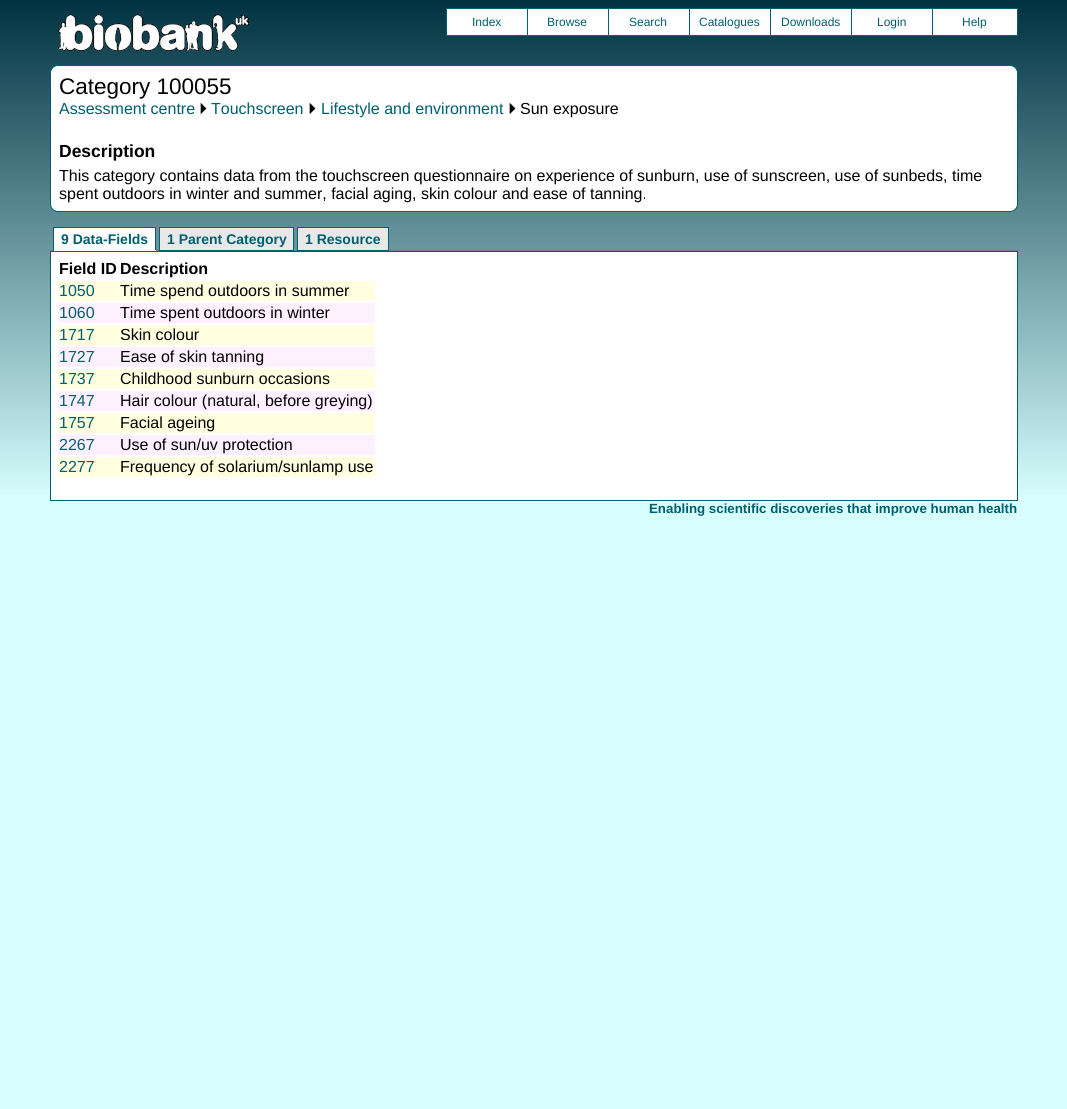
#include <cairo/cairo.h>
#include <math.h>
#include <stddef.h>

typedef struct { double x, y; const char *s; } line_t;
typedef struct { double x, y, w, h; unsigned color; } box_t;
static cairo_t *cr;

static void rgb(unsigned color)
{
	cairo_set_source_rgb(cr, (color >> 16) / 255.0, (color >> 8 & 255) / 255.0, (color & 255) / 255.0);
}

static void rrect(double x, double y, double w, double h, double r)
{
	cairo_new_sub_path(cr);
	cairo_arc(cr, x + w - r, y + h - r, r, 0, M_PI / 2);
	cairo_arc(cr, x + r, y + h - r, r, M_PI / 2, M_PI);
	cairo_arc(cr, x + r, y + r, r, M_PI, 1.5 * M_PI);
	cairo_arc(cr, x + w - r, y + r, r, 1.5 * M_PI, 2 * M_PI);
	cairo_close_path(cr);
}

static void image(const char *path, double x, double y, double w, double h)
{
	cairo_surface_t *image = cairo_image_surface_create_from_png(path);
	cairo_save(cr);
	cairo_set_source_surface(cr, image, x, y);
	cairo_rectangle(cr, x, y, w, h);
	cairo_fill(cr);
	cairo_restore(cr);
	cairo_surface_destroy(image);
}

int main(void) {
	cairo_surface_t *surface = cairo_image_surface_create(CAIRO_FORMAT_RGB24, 1067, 1109);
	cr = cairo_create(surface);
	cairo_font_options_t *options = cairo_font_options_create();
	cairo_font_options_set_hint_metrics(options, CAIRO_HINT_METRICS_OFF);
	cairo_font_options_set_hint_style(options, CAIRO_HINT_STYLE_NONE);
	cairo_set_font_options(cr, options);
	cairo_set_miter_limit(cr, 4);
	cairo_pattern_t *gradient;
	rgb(0xd7ffff);
	cairo_paint(cr);
	gradient = cairo_pattern_create_linear(0, 0, 0, 501);
	cairo_pattern_add_color_stop_rgba(gradient, 0, 0, 0.196, 0.255, 1);
	cairo_pattern_add_color_stop_rgba(gradient, 1, 0.843, 1, 1, 1);
	cairo_set_source(cr, gradient);
	cairo_pattern_destroy(gradient);
	cairo_rectangle(cr, 0, 0, 1067, 495);
	cairo_fill(cr);
	image("img/1.png", 58, 14, 191, 37);
	{
		static const box_t items[] = {
			{446, 8, 486, 1, 0x005f6f},
			{446, 35, 486, 1, 0x005f6f},
			{446, 8, 1, 28, 0x005f6f},
			{447, 9, 80, 26, 0xffffff},
			{527, 8, 1, 28, 0x005f6f},
			{528, 9, 80, 26, 0xffffff},
			{608, 8, 1, 28, 0x005f6f},
			{609, 9, 80, 26, 0xffffff},
			{689, 8, 1, 28, 0x005f6f},
			{690, 9, 80, 26, 0xffffff},
			{770, 8, 1, 28, 0x005f6f},
			{771, 9, 80, 26, 0xffffff},
			{851, 8, 1, 28, 0x005f6f},
			{852, 9, 80, 26, 0xffffff},
		};
		for (size_t i = 0; i < sizeof items / sizeof *items; i++) {
			rgb(items[i].color);
			cairo_rectangle(cr, items[i].x, items[i].y, items[i].w, items[i].h);
			cairo_fill(cr);
		}
	}
	cairo_rectangle(cr, 932.5, 8.5, 85, 27);
	rgb(0x005f6f);
	cairo_set_line_width(cr, 1);
	cairo_stroke(cr);
	rgb(0xffffff);
	cairo_rectangle(cr, 933, 9, 84, 26);
	cairo_fill(cr);
	rrect(50.5, 65.5, 967, 146, 7.5);
	cairo_fill_preserve(cr);
	rgb(0x005f6f);
	cairo_stroke(cr);
	{
		static const box_t items[] = {
			{50, 250, 968, 1, 0x777788},
			{54, 228, 101, 22, 0xffffff},
			{53, 227, 103, 1, 0x005f6f},
			{155, 227, 1, 24, 0x005f6f},
			{53, 250, 103, 1, 0xffffff},
			{53, 227, 1, 24, 0x005f6f},
		};
		for (size_t i = 0; i < sizeof items / sizeof *items; i++) {
			rgb(items[i].color);
			cairo_rectangle(cr, items[i].x, items[i].y, items[i].w, items[i].h);
			cairo_fill(cr);
		}
	}
	rgb(0xe8e8e8);
	cairo_rectangle(cr, 159.5, 227.5, 134, 23);
	cairo_fill_preserve(cr);
	rgb(0x005f6f);
	cairo_stroke(cr);
	rgb(0xe8e8e8);
	cairo_rectangle(cr, 297.5, 227.5, 91, 23);
	cairo_fill_preserve(cr);
	rgb(0x005f6f);
	cairo_stroke(cr);
	rgb(0xffffff);
	cairo_rectangle(cr, 50.5, 251.5, 967, 249);
	cairo_fill_preserve(cr);
	rgb(0x005f6f);
	cairo_stroke(cr);
	{
		static const box_t items[] = {
			{58, 281, 317, 20, 0xffffe0},
			{58, 303, 317, 20, 0xfff0ff},
			{58, 325, 317, 20, 0xffffe0},
			{58, 347, 317, 20, 0xfff0ff},
			{58, 369, 317, 20, 0xffffe0},
			{58, 391, 317, 20, 0xfff0ff},
			{58, 413, 317, 20, 0xffffe0},
			{58, 435, 317, 20, 0xfff0ff},
			{58, 457, 317, 20, 0xffffe0},
		};
		for (size_t i = 0; i < sizeof items / sizeof *items; i++) {
			rgb(items[i].color);
			cairo_rectangle(cr, items[i].x, items[i].y, items[i].w, items[i].h);
			cairo_fill(cr);
		}
	}
	cairo_select_font_face(cr, "Liberation Sans", CAIRO_FONT_SLANT_NORMAL, CAIRO_FONT_WEIGHT_NORMAL);
	cairo_set_font_size(cr, 12);
	rgb(0x005f6f);
	{
		static const line_t items[] = {
			{472, 26, "Index"},
			{547, 26, "Browse"},
			{629, 26, "Search"},
			{699, 26, "Catalogues"},
			{781, 26, "Downloads"},
			{877, 26, "Login"},
			{962, 26, "Help"},
		};
		for (size_t i = 0; i < sizeof items / sizeof *items; i++) {
			cairo_move_to(cr, items[i].x, items[i].y);
			cairo_show_text(cr, items[i].s);
		}
	}
	cairo_set_font_size(cr, 22.5);
	rgb(0x000000);
	cairo_move_to(cr, 59, 94);
	cairo_show_text(cr, "Category 100055");
	cairo_set_font_size(cr, 16);
	rgb(0x005f6f);
	cairo_move_to(cr, 59, 114);
	cairo_show_text(cr, "Assessment centre");
	cairo_select_font_face(cr, "FreeSans", CAIRO_FONT_SLANT_NORMAL, CAIRO_FONT_WEIGHT_NORMAL);
	rgb(0x000000);
	cairo_move_to(cr, 199, 114);
	cairo_show_text(cr, "⏵");
	cairo_select_font_face(cr, "Liberation Sans", CAIRO_FONT_SLANT_NORMAL, CAIRO_FONT_WEIGHT_NORMAL);
	rgb(0x005f6f);
	cairo_move_to(cr, 211, 114);
	cairo_show_text(cr, "Touchscreen");
	cairo_select_font_face(cr, "FreeSans", CAIRO_FONT_SLANT_NORMAL, CAIRO_FONT_WEIGHT_NORMAL);
	rgb(0x000000);
	cairo_move_to(cr, 308, 114);
	cairo_show_text(cr, "⏵");
	cairo_select_font_face(cr, "Liberation Sans", CAIRO_FONT_SLANT_NORMAL, CAIRO_FONT_WEIGHT_NORMAL);
	rgb(0x005f6f);
	cairo_move_to(cr, 321, 114);
	cairo_show_text(cr, "Lifestyle and environment");
	cairo_select_font_face(cr, "FreeSans", CAIRO_FONT_SLANT_NORMAL, CAIRO_FONT_WEIGHT_NORMAL);
	rgb(0x000000);
	cairo_move_to(cr, 508, 114);
	cairo_show_text(cr, "⏵");
	cairo_select_font_face(cr, "Liberation Sans", CAIRO_FONT_SLANT_NORMAL, CAIRO_FONT_WEIGHT_NORMAL);
	cairo_move_to(cr, 520, 114);
	cairo_show_text(cr, "Sun exposure");
	cairo_select_font_face(cr, "Liberation Sans", CAIRO_FONT_SLANT_NORMAL, CAIRO_FONT_WEIGHT_BOLD);
	cairo_set_font_size(cr, 17.5);
	cairo_move_to(cr, 59, 157);
	cairo_show_text(cr, "Description");
	cairo_select_font_face(cr, "Liberation Sans", CAIRO_FONT_SLANT_NORMAL, CAIRO_FONT_WEIGHT_NORMAL);
	cairo_set_font_size(cr, 16);
	cairo_move_to(cr, 59, 181);
	cairo_show_text(cr, "This category contains data from the touchscreen questionnaire on experience of sunburn, use of sunscreen, use of sunbeds, time");
	cairo_move_to(cr, 59, 199);
	cairo_show_text(cr, "spent outdoors in winter and summer, facial aging, skin colour and ease of tanning.");
	cairo_select_font_face(cr, "Liberation Sans", CAIRO_FONT_SLANT_NORMAL, CAIRO_FONT_WEIGHT_BOLD);
	cairo_set_font_size(cr, 14);
	rgb(0x005f6f);
	{
		static const line_t items[] = {
			{61, 244, "9 Data-Fields"},
			{167, 244, "1 Parent Category"},
			{305, 244, "1 Resource"},
		};
		for (size_t i = 0; i < sizeof items / sizeof *items; i++) {
			cairo_move_to(cr, items[i].x, items[i].y);
			cairo_show_text(cr, items[i].s);
		}
	}
	cairo_set_font_size(cr, 16);
	rgb(0x000000);
	cairo_move_to(cr, 59, 274);
	cairo_show_text(cr, "Field ID");
	cairo_move_to(cr, 120, 274);
	cairo_show_text(cr, "Description");
	cairo_select_font_face(cr, "Liberation Sans", CAIRO_FONT_SLANT_NORMAL, CAIRO_FONT_WEIGHT_NORMAL);
	rgb(0x005f6f);
	cairo_move_to(cr, 59, 296);
	cairo_show_text(cr, "1050");
	rgb(0x000000);
	cairo_move_to(cr, 120, 296);
	cairo_show_text(cr, "Time spend outdoors in summer");
	rgb(0x005f6f);
	cairo_move_to(cr, 59, 318);
	cairo_show_text(cr, "1060");
	rgb(0x000000);
	cairo_move_to(cr, 120, 318);
	cairo_show_text(cr, "Time spent outdoors in winter");
	rgb(0x005f6f);
	cairo_move_to(cr, 59, 340);
	cairo_show_text(cr, "1717");
	rgb(0x000000);
	cairo_move_to(cr, 120, 340);
	cairo_show_text(cr, "Skin colour");
	rgb(0x005f6f);
	cairo_move_to(cr, 59, 362);
	cairo_show_text(cr, "1727");
	rgb(0x000000);
	cairo_move_to(cr, 120, 362);
	cairo_show_text(cr, "Ease of skin tanning");
	rgb(0x005f6f);
	cairo_move_to(cr, 59, 384);
	cairo_show_text(cr, "1737");
	rgb(0x000000);
	cairo_move_to(cr, 120, 384);
	cairo_show_text(cr, "Childhood sunburn occasions");
	rgb(0x005f6f);
	cairo_move_to(cr, 59, 406);
	cairo_show_text(cr, "1747");
	rgb(0x000000);
	cairo_move_to(cr, 120, 406);
	cairo_show_text(cr, "Hair colour (natural, before greying)");
	rgb(0x005f6f);
	cairo_move_to(cr, 59, 428);
	cairo_show_text(cr, "1757");
	rgb(0x000000);
	cairo_move_to(cr, 120, 428);
	cairo_show_text(cr, "Facial ageing");
	rgb(0x005f6f);
	cairo_move_to(cr, 59, 450);
	cairo_show_text(cr, "2267");
	rgb(0x000000);
	cairo_move_to(cr, 120, 450);
	cairo_show_text(cr, "Use of sun/uv protection");
	rgb(0x005f6f);
	cairo_move_to(cr, 59, 472);
	cairo_show_text(cr, "2277");
	rgb(0x000000);
	cairo_move_to(cr, 120, 472);
	cairo_show_text(cr, "Frequency of solarium/sunlamp use");
	cairo_select_font_face(cr, "Liberation Sans", CAIRO_FONT_SLANT_NORMAL, CAIRO_FONT_WEIGHT_BOLD);
	cairo_set_font_size(cr, 13.3);
	rgb(0x005f6f);
	cairo_move_to(cr, 649, 513);
	cairo_show_text(cr, "Enabling scientific discoveries that improve human health");
	cairo_surface_write_to_png(surface, "page.png");
	cairo_font_options_destroy(options);
	cairo_destroy(cr);
	cairo_surface_destroy(surface);
	return 0;
}
